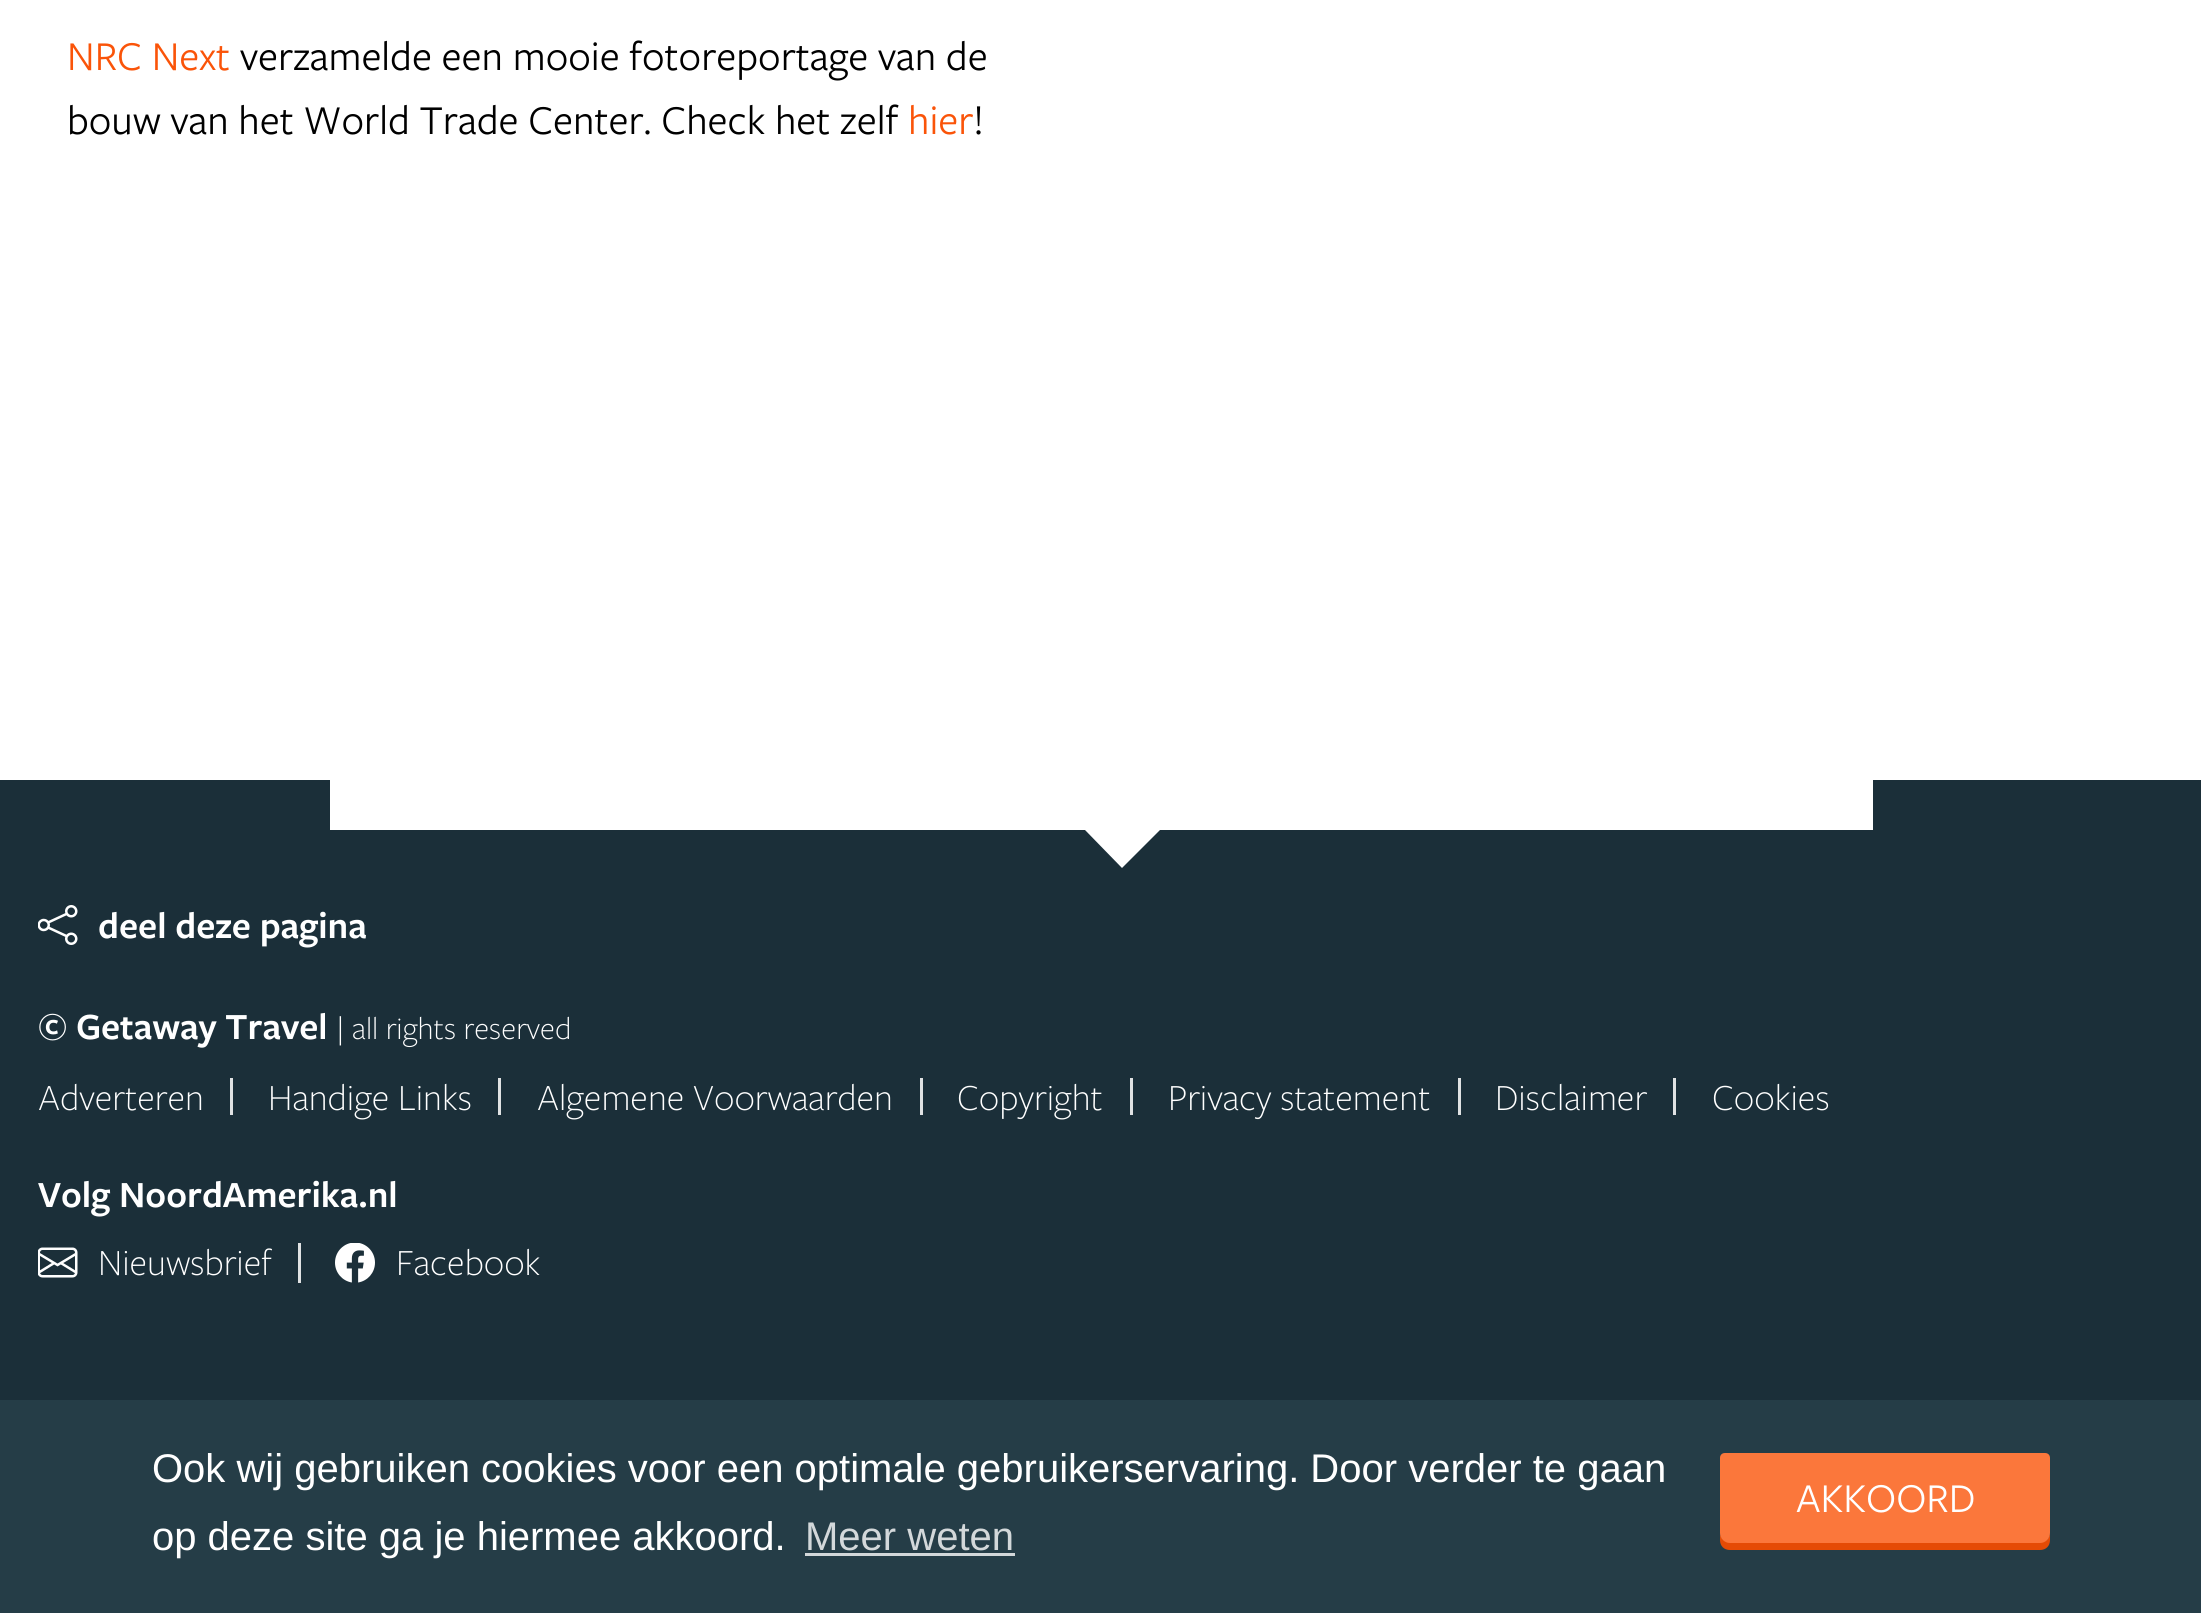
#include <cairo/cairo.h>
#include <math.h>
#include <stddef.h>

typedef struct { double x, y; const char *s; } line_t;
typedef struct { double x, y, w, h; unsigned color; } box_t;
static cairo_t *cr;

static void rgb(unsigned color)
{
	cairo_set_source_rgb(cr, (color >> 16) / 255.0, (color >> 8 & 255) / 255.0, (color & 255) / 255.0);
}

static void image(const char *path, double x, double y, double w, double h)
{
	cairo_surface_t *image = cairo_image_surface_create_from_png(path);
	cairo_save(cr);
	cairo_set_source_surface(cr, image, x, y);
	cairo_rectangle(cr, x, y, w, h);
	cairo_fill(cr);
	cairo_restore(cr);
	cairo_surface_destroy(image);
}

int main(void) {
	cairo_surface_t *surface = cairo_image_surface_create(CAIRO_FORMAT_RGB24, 2201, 1613);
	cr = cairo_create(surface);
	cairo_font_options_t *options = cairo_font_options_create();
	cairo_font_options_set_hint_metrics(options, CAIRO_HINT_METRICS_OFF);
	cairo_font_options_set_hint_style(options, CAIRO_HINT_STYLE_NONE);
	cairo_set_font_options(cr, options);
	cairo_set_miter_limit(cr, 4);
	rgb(0xffffff);
	cairo_paint(cr);
	rgb(0x1b2f39);
	cairo_rectangle(cr, 0, 780, 2201, 620);
	cairo_fill(cr);
	rgb(0xffffff);
	cairo_rectangle(cr, 330, 780, 1543, 50);
	cairo_fill(cr);
	cairo_new_path(cr);
	cairo_move_to(cr, 1085, 830);
	cairo_line_to(cr, 1160, 830);
	cairo_line_to(cr, 1122, 868);
	cairo_close_path(cr);
	cairo_fill(cr);
	image("img/1.png", 38, 905, 40, 40);
	{
		static const box_t items[] = {
			{230, 1078, 3, 37, 0xe0e2e3},
			{498, 1078, 3, 37, 0xe0e2e3},
			{920, 1078, 3, 37, 0xe0e2e3},
			{1130, 1078, 3, 37, 0xe0e2e3},
			{1458, 1078, 3, 37, 0xe0e2e3},
			{1673, 1078, 3, 37, 0xe0e2e3},
			{298, 1243, 3, 40, 0xe0e2e3},
		};
		for (size_t i = 0; i < sizeof items / sizeof *items; i++) {
			rgb(items[i].color);
			cairo_rectangle(cr, items[i].x, items[i].y, items[i].w, items[i].h);
			cairo_fill(cr);
		}
	}
	image("img/2.png", 38, 1247, 40, 31);
	image("img/3.png", 335, 1243, 40, 40);
	rgb(0x253d47);
	cairo_rectangle(cr, 0, 1400, 2201, 213);
	cairo_fill(cr);
	rgb(0xd3d8da);
	cairo_rectangle(cr, 805, 1553, 210, 3);
	cairo_fill(cr);
	rgb(0xe54b05);
	cairo_new_path(cr);
	cairo_move_to(cr, 1720, 1532);
	cairo_line_to(cr, 1720, 1540);
	cairo_curve_to(cr, 1720, 1546, 1724, 1550, 1730, 1550);
	cairo_line_to(cr, 2040, 1550);
	cairo_curve_to(cr, 2046, 1550, 2050, 1546, 2050, 1540);
	cairo_line_to(cr, 2050, 1532);
	cairo_curve_to(cr, 2050, 1538, 2046, 1542, 2040, 1542);
	cairo_line_to(cr, 1730, 1542);
	cairo_curve_to(cr, 1724, 1542, 1720, 1538, 1720, 1532);
	cairo_close_path(cr);
	cairo_fill(cr);
	rgb(0xfb773b);
	cairo_new_path(cr);
	cairo_move_to(cr, 1725, 1453);
	cairo_line_to(cr, 2045, 1453);
	cairo_curve_to(cr, 2048, 1453, 2050, 1455, 2050, 1458);
	cairo_line_to(cr, 2050, 1533);
	cairo_curve_to(cr, 2050, 1538.5, 2045.5, 1543, 2040, 1543);
	cairo_line_to(cr, 1730, 1543);
	cairo_curve_to(cr, 1724.5, 1543, 1720, 1538.5, 1720, 1533);
	cairo_line_to(cr, 1720, 1458);
	cairo_curve_to(cr, 1720, 1455, 1722, 1453, 1725, 1453);
	cairo_close_path(cr);
	cairo_fill(cr);
	cairo_select_font_face(cr, "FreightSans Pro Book", CAIRO_FONT_SLANT_NORMAL, CAIRO_FONT_WEIGHT_NORMAL);
	cairo_set_font_size(cr, 42.5);
	rgb(0xfa5409);
	cairo_move_to(cr, 67, 70);
	cairo_show_text(cr, "NRC Next");
	rgb(0x000000);
	cairo_move_to(cr, 240, 70);
	cairo_show_text(cr, "verzamelde een mooie fotoreportage van de");
	cairo_move_to(cr, 67, 134);
	cairo_show_text(cr, "bouw van het World Trade Center. Check het zelf");
	rgb(0xfa5409);
	cairo_move_to(cr, 908, 134);
	cairo_show_text(cr, "hier");
	rgb(0x000000);
	cairo_move_to(cr, 973, 134);
	cairo_show_text(cr, "!");
	cairo_select_font_face(cr, "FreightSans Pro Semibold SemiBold", CAIRO_FONT_SLANT_NORMAL, CAIRO_FONT_WEIGHT_NORMAL);
	cairo_set_font_size(cr, 38.25);
	rgb(0xffffff);
	cairo_move_to(cr, 98, 938);
	cairo_show_text(cr, "deel deze pagina");
	cairo_move_to(cr, 38, 1039);
	cairo_show_text(cr, "© Getaway Travel");
	cairo_select_font_face(cr, "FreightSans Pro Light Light", CAIRO_FONT_SLANT_NORMAL, CAIRO_FONT_WEIGHT_NORMAL);
	cairo_set_font_size(cr, 32.5);
	cairo_move_to(cr, 336, 1039);
	cairo_show_text(cr, "| all rights reserved");
	cairo_set_font_size(cr, 38.25);
	{
		static const line_t items[] = {
			{38, 1110, "Adverteren"},
			{268, 1110, "Handige Links"},
			{537, 1110, "Algemene Voorwaarden"},
			{957, 1110, "Copyright"},
			{1168, 1110, "Privacy statement"},
			{1495, 1110, "Disclaimer"},
			{1712, 1110, "Cookies"},
		};
		for (size_t i = 0; i < sizeof items / sizeof *items; i++) {
			cairo_move_to(cr, items[i].x, items[i].y);
			cairo_show_text(cr, items[i].s);
		}
	}
	cairo_select_font_face(cr, "FreightSans Pro Semibold SemiBold", CAIRO_FONT_SLANT_NORMAL, CAIRO_FONT_WEIGHT_NORMAL);
	cairo_move_to(cr, 38, 1207);
	cairo_show_text(cr, "Volg NoordAmerika.nl");
	cairo_select_font_face(cr, "FreightSans Pro Light Light", CAIRO_FONT_SLANT_NORMAL, CAIRO_FONT_WEIGHT_NORMAL);
	cairo_move_to(cr, 98, 1275);
	cairo_show_text(cr, "Nieuwsbrief");
	cairo_move_to(cr, 396, 1275);
	cairo_show_text(cr, "Facebook");
	cairo_select_font_face(cr, "Liberation Sans", CAIRO_FONT_SLANT_NORMAL, CAIRO_FONT_WEIGHT_NORMAL);
	cairo_set_font_size(cr, 40);
	cairo_move_to(cr, 152, 1482);
	cairo_show_text(cr, "Ook wij gebruiken cookies voor een optimale gebruikerservaring. Door verder te gaan");
	cairo_move_to(cr, 152, 1550);
	cairo_show_text(cr, "op deze site ga je hiermee akkoord.");
	rgb(0xd3d8da);
	cairo_move_to(cr, 805, 1550);
	cairo_show_text(cr, "Meer weten");
	cairo_select_font_face(cr, "FreightSans Pro Book", CAIRO_FONT_SLANT_NORMAL, CAIRO_FONT_WEIGHT_NORMAL);
	cairo_set_font_size(cr, 42.5);
	rgb(0xffffff);
	cairo_move_to(cr, 1796, 1512);
	cairo_show_text(cr, "AKKOORD");
	cairo_surface_write_to_png(surface, "page.png");
	cairo_font_options_destroy(options);
	cairo_destroy(cr);
	cairo_surface_destroy(surface);
	return 0;
}
